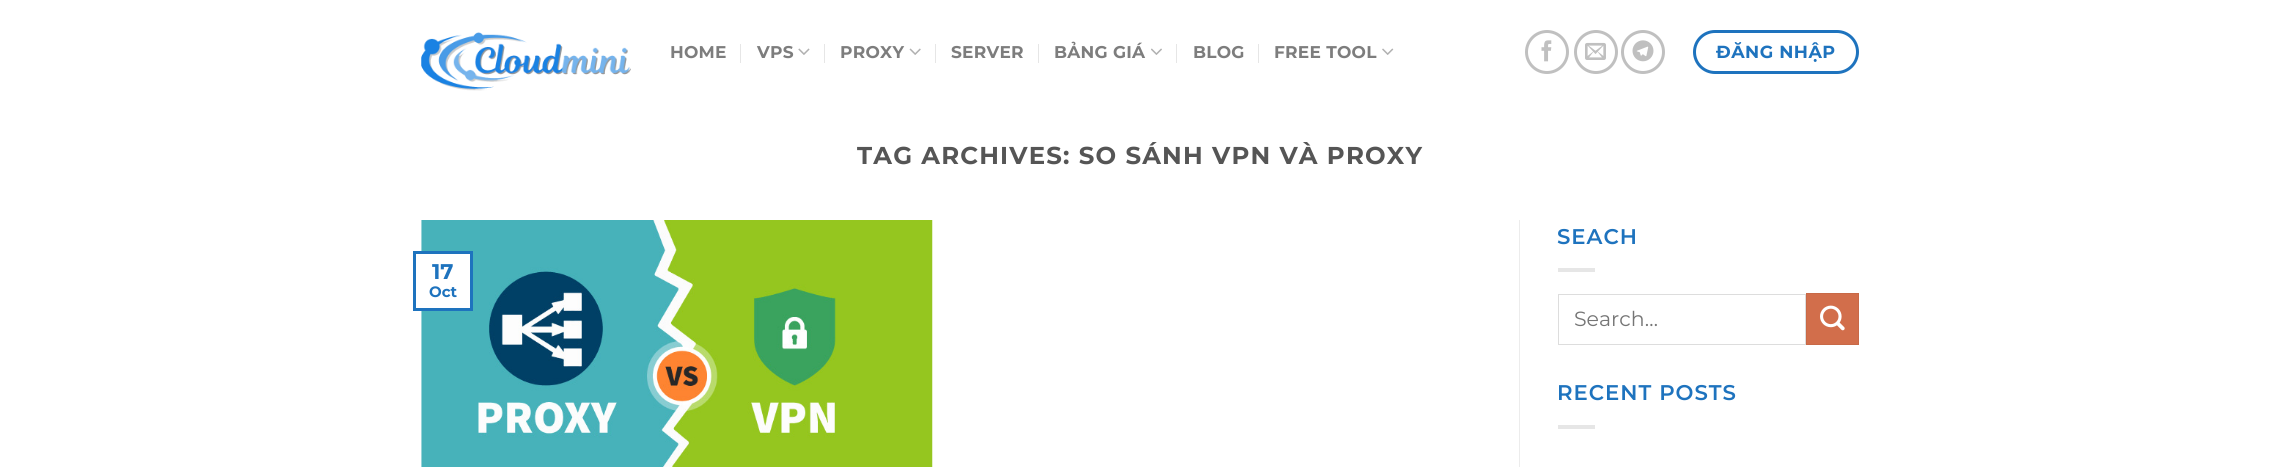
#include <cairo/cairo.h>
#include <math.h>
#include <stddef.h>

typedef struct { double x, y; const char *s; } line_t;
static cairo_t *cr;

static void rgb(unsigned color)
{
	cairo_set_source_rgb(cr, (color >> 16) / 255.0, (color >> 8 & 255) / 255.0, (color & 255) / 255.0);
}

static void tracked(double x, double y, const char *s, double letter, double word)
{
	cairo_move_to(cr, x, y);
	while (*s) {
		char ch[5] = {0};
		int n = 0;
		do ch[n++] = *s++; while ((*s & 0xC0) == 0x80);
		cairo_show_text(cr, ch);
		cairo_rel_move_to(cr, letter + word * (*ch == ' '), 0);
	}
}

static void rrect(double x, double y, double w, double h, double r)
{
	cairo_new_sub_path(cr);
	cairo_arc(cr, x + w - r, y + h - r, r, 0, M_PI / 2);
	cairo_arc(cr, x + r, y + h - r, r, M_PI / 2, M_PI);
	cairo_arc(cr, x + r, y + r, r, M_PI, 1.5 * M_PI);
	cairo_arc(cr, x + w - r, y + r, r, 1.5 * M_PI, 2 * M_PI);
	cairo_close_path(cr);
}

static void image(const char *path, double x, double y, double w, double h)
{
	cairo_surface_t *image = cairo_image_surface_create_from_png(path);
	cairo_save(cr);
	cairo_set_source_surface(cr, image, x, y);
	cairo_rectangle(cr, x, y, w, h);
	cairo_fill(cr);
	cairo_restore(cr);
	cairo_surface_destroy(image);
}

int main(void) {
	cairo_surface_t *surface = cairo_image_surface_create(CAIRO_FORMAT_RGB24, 2279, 467);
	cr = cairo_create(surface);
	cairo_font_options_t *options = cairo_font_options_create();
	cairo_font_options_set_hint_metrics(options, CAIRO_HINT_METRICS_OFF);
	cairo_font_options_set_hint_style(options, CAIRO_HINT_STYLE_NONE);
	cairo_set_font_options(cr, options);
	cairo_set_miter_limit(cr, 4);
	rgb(0xffffff);
	cairo_paint(cr);
	image("img/1.png", 421, 32, 210, 59);
	rgb(0xe6e6e6);
	cairo_rectangle(cr, 740, 44, 1, 19);
	cairo_fill(cr);
	image("img/2.png", 798, 48, 12, 7);
	cairo_rectangle(cr, 824, 44, 1, 19);
	cairo_fill(cr);
	image("img/3.png", 909, 48, 12, 7);
	cairo_rectangle(cr, 935, 44, 1, 19);
	cairo_fill(cr);
	cairo_rectangle(cr, 1038, 44, 1, 19);
	cairo_fill(cr);
	image("img/4.png", 1151, 48, 11, 7);
	cairo_rectangle(cr, 1176, 44, 1, 19);
	cairo_fill(cr);
	cairo_rectangle(cr, 1258, 44, 1, 19);
	cairo_fill(cr);
	image("img/5.png", 1382, 48, 12, 7);
	cairo_arc(cr, 1547, 52, 20.5, 0, 2 * M_PI);
	rgb(0xc0c0c0);
	cairo_set_line_width(cr, 3);
	cairo_stroke(cr);
	image("img/6.png", 1541, 40, 11, 22);
	cairo_arc(cr, 1596, 52, 20.5, 0, 2 * M_PI);
	cairo_stroke(cr);
	image("img/7.png", 1585, 42, 21, 18);
	cairo_arc(cr, 1643, 52, 20.5, 0, 2 * M_PI);
	cairo_stroke(cr);
	image("img/8.png", 1632, 40, 22, 22);
	rrect(1694.5, 31.5, 163, 41, 20.5);
	rgb(0x1e73be);
	cairo_stroke(cr);
	image("img/9.png", 421, 220, 512, 247);
	rgb(0xffffff);
	cairo_rectangle(cr, 421, 254, 49, 54);
	cairo_fill(cr);
	cairo_rectangle(cr, 414.5, 252.5, 57, 57);
	rgb(0x1e73be);
	cairo_stroke(cr);
	rgb(0xececec);
	cairo_rectangle(cr, 1519, 220, 1, 247);
	cairo_fill(cr);
	rgb(0xe6e6e6);
	cairo_rectangle(cr, 1558, 268, 37, 4);
	cairo_fill(cr);
	cairo_rectangle(cr, 1558.5, 294.5, 247, 50);
	rgb(0xdddddd);
	cairo_set_line_width(cr, 1);
	cairo_stroke(cr);
	rgb(0xd26e4b);
	cairo_rectangle(cr, 1806.5, 293.5, 52, 51);
	cairo_fill_preserve(cr);
	rgb(0xc86947);
	cairo_stroke(cr);
	image("img/10.png", 1820, 305, 25, 26);
	rgb(0xe6e6e6);
	cairo_rectangle(cr, 1558, 425, 37, 4);
	cairo_fill(cr);
	cairo_select_font_face(cr, "Montserrat", CAIRO_FONT_SLANT_NORMAL, CAIRO_FONT_WEIGHT_BOLD);
	cairo_set_font_size(cr, 17);
	rgb(0x7d7d7d);
	{
		static const line_t items[] = {
			{670, 58, "HOME"},
			{757, 58, "VPS"},
			{840, 58, "PROXY"},
			{951, 58, "SERVER"},
			{1054, 58, "BẢNG GIÁ"},
			{1193, 58, "BLOG"},
			{1274, 58, "FREE TOOL"},
		};
		for (size_t i = 0; i < sizeof items / sizeof *items; i++) {
			tracked(items[i].x, items[i].y, items[i].s, 0.25, 0);
		}
	}
	cairo_set_font_size(cr, 17.5);
	rgb(0x1e73be);
	tracked(1716, 58, "ĐĂNG NHẬP", 0.5, 0);
	cairo_set_font_size(cr, 24.4);
	rgb(0x555555);
	tracked(857, 164, "TAG ARCHIVES: SO SÁNH VPN VÀ PROXY", 1.2, 0);
	cairo_set_font_size(cr, 21.25);
	rgb(0x1e73be);
	cairo_move_to(cr, 432, 279);
	cairo_show_text(cr, "17");
	cairo_set_font_size(cr, 15);
	cairo_move_to(cr, 429, 297);
	cairo_show_text(cr, "Oct");
	cairo_select_font_face(cr, "Montserrat SemiBold", CAIRO_FONT_SLANT_NORMAL, CAIRO_FONT_WEIGHT_NORMAL);
	cairo_set_font_size(cr, 21.25);
	tracked(1557, 244, "SEACH", 1, 0);
	cairo_select_font_face(cr, "Montserrat", CAIRO_FONT_SLANT_NORMAL, CAIRO_FONT_WEIGHT_NORMAL);
	cairo_set_font_size(cr, 20.5);
	rgb(0x757575);
	cairo_move_to(cr, 1574, 326);
	cairo_show_text(cr, "Search…");
	cairo_select_font_face(cr, "Montserrat SemiBold", CAIRO_FONT_SLANT_NORMAL, CAIRO_FONT_WEIGHT_NORMAL);
	cairo_set_font_size(cr, 21.25);
	rgb(0x1e73be);
	tracked(1557, 400, "RECENT POSTS", 1, 0);
	cairo_surface_write_to_png(surface, "page.png");
	cairo_font_options_destroy(options);
	cairo_destroy(cr);
	cairo_surface_destroy(surface);
	return 0;
}
